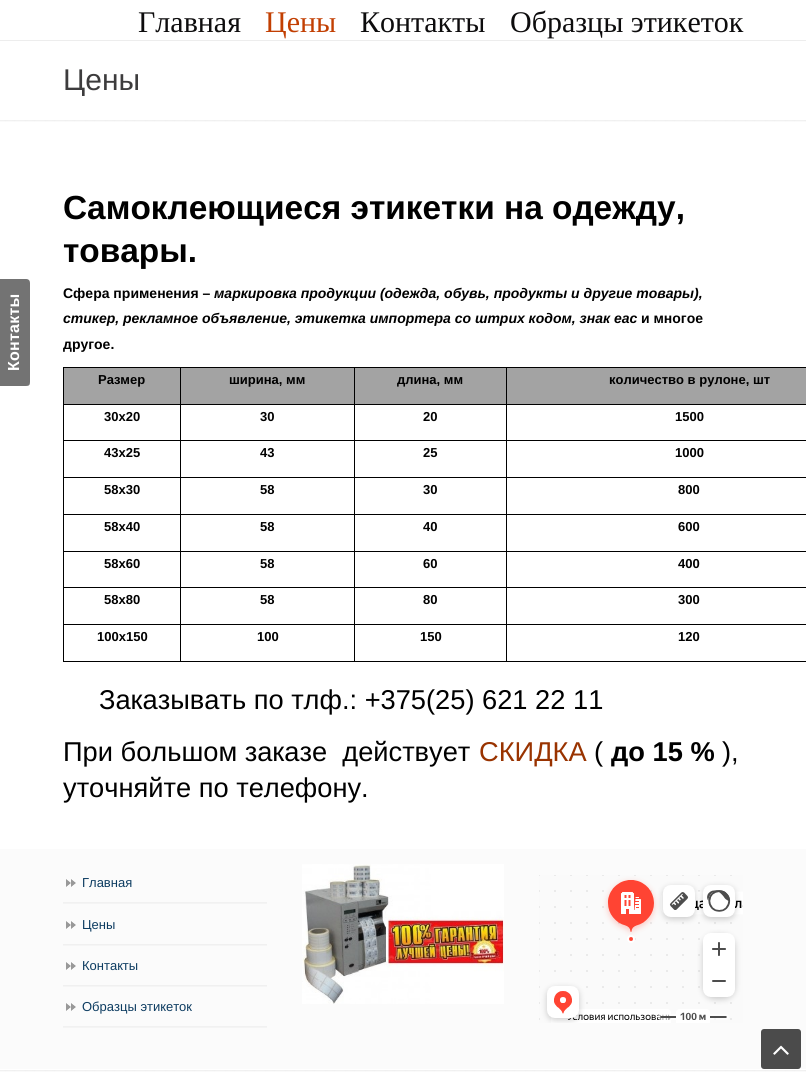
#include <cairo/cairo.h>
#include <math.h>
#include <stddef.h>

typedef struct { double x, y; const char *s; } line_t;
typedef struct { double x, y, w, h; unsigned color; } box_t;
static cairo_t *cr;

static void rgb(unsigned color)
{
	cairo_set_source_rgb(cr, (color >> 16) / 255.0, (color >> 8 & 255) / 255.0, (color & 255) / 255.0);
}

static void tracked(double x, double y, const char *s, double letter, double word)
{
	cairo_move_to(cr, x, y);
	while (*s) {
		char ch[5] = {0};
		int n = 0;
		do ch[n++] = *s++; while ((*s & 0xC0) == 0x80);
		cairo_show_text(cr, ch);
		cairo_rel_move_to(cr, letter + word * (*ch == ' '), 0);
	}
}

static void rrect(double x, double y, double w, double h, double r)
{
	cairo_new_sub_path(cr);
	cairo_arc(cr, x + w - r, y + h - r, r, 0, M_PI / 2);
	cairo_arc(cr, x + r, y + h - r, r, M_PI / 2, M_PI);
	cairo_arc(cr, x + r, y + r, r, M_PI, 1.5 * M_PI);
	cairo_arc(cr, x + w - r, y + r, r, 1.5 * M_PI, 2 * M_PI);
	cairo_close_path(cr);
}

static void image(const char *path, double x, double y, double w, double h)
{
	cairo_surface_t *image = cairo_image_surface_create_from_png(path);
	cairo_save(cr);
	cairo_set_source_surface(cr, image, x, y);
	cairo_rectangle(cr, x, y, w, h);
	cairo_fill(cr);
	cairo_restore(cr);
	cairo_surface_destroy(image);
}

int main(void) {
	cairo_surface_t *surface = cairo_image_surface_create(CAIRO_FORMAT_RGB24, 806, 1074);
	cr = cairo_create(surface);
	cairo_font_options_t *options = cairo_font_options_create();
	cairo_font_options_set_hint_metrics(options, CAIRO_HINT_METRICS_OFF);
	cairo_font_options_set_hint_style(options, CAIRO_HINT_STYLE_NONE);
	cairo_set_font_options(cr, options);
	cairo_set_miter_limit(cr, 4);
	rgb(0xfbfbfb);
	cairo_paint(cr);
	rgb(0xffffff);
	cairo_rectangle(cr, 0, 41, 806, 808);
	cairo_fill(cr);
	rgb(0x737373);
	cairo_new_path(cr);
	cairo_move_to(cr, -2, 386);
	cairo_line_to(cr, -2, 279);
	cairo_line_to(cr, 26, 279);
	cairo_curve_to(cr, 29, 279, 30, 281, 30, 283);
	cairo_line_to(cr, 30, 382);
	cairo_curve_to(cr, 30, 385, 29, 386, 26, 386);
	cairo_close_path(cr);
	cairo_fill(cr);
	rgb(0xffffff);
	cairo_rectangle(cr, 0, 0, 806, 40);
	cairo_fill(cr);
	rgb(0xededed);
	cairo_rectangle(cr, 0, 40, 806, 1);
	cairo_fill(cr);
	image("img/1.png", 0, 120, 806, 2);
	{
		static const box_t items[] = {
			{63, 367, 743, 1, 0x000000},
			{63, 661, 743, 1, 0x000000},
			{63, 367, 1, 295, 0x000000},
			{64, 368, 742, 36, 0xa3a3a3},
			{506, 404, 300, 1, 0x000000},
			{506, 440, 300, 1, 0x000000},
			{506, 477, 300, 1, 0x000000},
			{506, 514, 300, 1, 0x000000},
			{506, 551, 300, 1, 0x000000},
			{506, 587, 300, 1, 0x000000},
			{506, 624, 300, 1, 0x000000},
			{506, 624, 1, 38, 0x000000},
			{354, 624, 153, 1, 0x000000},
			{506, 587, 1, 38, 0x000000},
			{354, 587, 153, 1, 0x000000},
			{506, 551, 1, 37, 0x000000},
			{354, 551, 153, 1, 0x000000},
			{506, 514, 1, 38, 0x000000},
			{354, 514, 153, 1, 0x000000},
			{506, 477, 1, 38, 0x000000},
			{354, 477, 153, 1, 0x000000},
			{506, 440, 1, 38, 0x000000},
			{354, 440, 153, 1, 0x000000},
			{506, 404, 1, 37, 0x000000},
			{354, 404, 153, 1, 0x000000},
			{354, 624, 1, 38, 0x000000},
			{180, 624, 175, 1, 0x000000},
			{354, 587, 1, 38, 0x000000},
			{180, 587, 175, 1, 0x000000},
			{354, 551, 1, 37, 0x000000},
			{180, 551, 175, 1, 0x000000},
			{354, 514, 1, 38, 0x000000},
			{180, 514, 175, 1, 0x000000},
			{354, 477, 1, 38, 0x000000},
			{180, 477, 175, 1, 0x000000},
			{354, 440, 1, 38, 0x000000},
			{180, 440, 175, 1, 0x000000},
			{354, 404, 1, 37, 0x000000},
			{180, 404, 175, 1, 0x000000},
			{180, 624, 1, 38, 0x000000},
			{63, 624, 118, 1, 0x000000},
			{180, 587, 1, 38, 0x000000},
			{63, 587, 118, 1, 0x000000},
			{180, 551, 1, 37, 0x000000},
			{63, 551, 118, 1, 0x000000},
			{180, 514, 1, 38, 0x000000},
			{63, 514, 118, 1, 0x000000},
			{180, 477, 1, 38, 0x000000},
			{63, 477, 118, 1, 0x000000},
			{180, 440, 1, 38, 0x000000},
			{63, 440, 118, 1, 0x000000},
			{180, 404, 1, 37, 0x000000},
			{63, 404, 118, 1, 0x000000},
			{180, 367, 1, 38, 0x000000},
			{354, 367, 1, 38, 0x000000},
			{506, 367, 1, 38, 0x000000},
		};
		for (size_t i = 0; i < sizeof items / sizeof *items; i++) {
			rgb(items[i].color);
			cairo_rectangle(cr, items[i].x, items[i].y, items[i].w, items[i].h);
			cairo_fill(cr);
		}
	}
	image("img/2.png", 63, 902, 204, 2);
	image("img/3.png", 66, 879, 10, 8);
	image("img/4.png", 63, 944, 204, 2);
	image("img/3.png", 66, 921, 10, 8);
	image("img/4.png", 63, 985, 204, 2);
	image("img/3.png", 66, 962, 10, 8);
	image("img/2.png", 63, 1026, 204, 2);
	image("img/3.png", 66, 1003, 10, 8);
	image("img/5.png", 302, 864, 202, 140);
	image("img/6.png", 539, 875, 204, 148);
	rgb(0xffffff);
	cairo_rectangle(cr, 0, 1069, 806, 5);
	cairo_fill(cr);
	rgb(0x4b4b4b);
	rrect(761, 1029, 40, 40, 3);
	cairo_fill(cr);
	image("img/7.png", 773, 1045, 16, 10);
	image("img/1.png", 0, 1070, 806, 2);
	cairo_select_font_face(cr, "Liberation Sans", CAIRO_FONT_SLANT_NORMAL, CAIRO_FONT_WEIGHT_BOLD);
	cairo_set_font_size(cr, 16);
	rgb(0xffffff);
	cairo_save(cr);
	cairo_translate(cr, 19, 371);
	cairo_rotate(cr, -90 * M_PI / 180);
	tracked(0, 0, "Контакты", 0.25, 0);
	cairo_restore(cr);
	cairo_select_font_face(cr, "Liberation Serif", CAIRO_FONT_SLANT_NORMAL, CAIRO_FONT_WEIGHT_NORMAL);
	cairo_set_font_size(cr, 30);
	rgb(0x0d0c0d);
	cairo_move_to(cr, 138, 32);
	cairo_show_text(cr, "Главная");
	rgb(0xc23f02);
	cairo_move_to(cr, 265, 32);
	cairo_show_text(cr, "Цены");
	rgb(0x0d0c0d);
	cairo_move_to(cr, 360, 32);
	cairo_show_text(cr, "Контакты");
	cairo_move_to(cr, 510, 32);
	cairo_show_text(cr, "Образцы этикеток");
	cairo_select_font_face(cr, "Liberation Sans", CAIRO_FONT_SLANT_NORMAL, CAIRO_FONT_WEIGHT_NORMAL);
	rgb(0x3d3c3d);
	cairo_move_to(cr, 63, 90);
	cairo_show_text(cr, "Цены");
	cairo_select_font_face(cr, "Liberation Sans", CAIRO_FONT_SLANT_NORMAL, CAIRO_FONT_WEIGHT_BOLD);
	cairo_set_font_size(cr, 33.4);
	rgb(0x000000);
	cairo_move_to(cr, 63, 219);
	cairo_show_text(cr, "Самоклеющиеся этикетки на одежду,");
	cairo_move_to(cr, 63, 262);
	cairo_show_text(cr, "товары.");
	cairo_set_font_size(cr, 14);
	cairo_move_to(cr, 63, 298);
	cairo_show_text(cr, "Сфера применения –");
	cairo_select_font_face(cr, "Liberation Sans", CAIRO_FONT_SLANT_ITALIC, CAIRO_FONT_WEIGHT_BOLD);
	cairo_move_to(cr, 214, 298);
	cairo_show_text(cr, "маркировка продукции (одежда, обувь, продукты и другие товары),");
	cairo_move_to(cr, 63, 323);
	cairo_show_text(cr, "стикер, рекламное объявление, этикетка импортера со штрих кодом, знак еас");
	cairo_select_font_face(cr, "Liberation Sans", CAIRO_FONT_SLANT_NORMAL, CAIRO_FONT_WEIGHT_BOLD);
	cairo_move_to(cr, 641, 323);
	cairo_show_text(cr, "и многое");
	cairo_move_to(cr, 63, 349);
	cairo_show_text(cr, "другое.");
	cairo_set_font_size(cr, 13);
	{
		static const line_t items[] = {
			{98, 384, "Размер"},
			{229, 384, "ширина, мм"},
			{397, 384, "длина, мм"},
			{609, 384, "количество в рулоне, шт"},
			{104, 421, "30х20"},
			{260, 421, "30"},
			{423, 421, "20"},
			{675, 421, "1500"},
			{104, 457, "43х25"},
			{260, 457, "43"},
			{423, 457, "25"},
			{675, 457, "1000"},
			{104, 494, "58х30"},
			{260, 494, "58"},
			{423, 494, "30"},
			{678, 494, "800"},
			{104, 531, "58х40"},
			{260, 531, "58"},
			{423, 531, "40"},
			{678, 531, "600"},
			{104, 568, "58х60"},
			{260, 568, "58"},
			{423, 568, "60"},
			{678, 568, "400"},
			{104, 604, "58х80"},
			{260, 604, "58"},
			{423, 604, "80"},
			{678, 604, "300"},
			{97, 641, "100х150"},
			{257, 641, "100"},
			{420, 641, "150"},
			{678, 641, "120"},
		};
		for (size_t i = 0; i < sizeof items / sizeof *items; i++) {
			cairo_move_to(cr, items[i].x, items[i].y);
			cairo_show_text(cr, items[i].s);
		}
	}
	cairo_select_font_face(cr, "Liberation Sans", CAIRO_FONT_SLANT_NORMAL, CAIRO_FONT_WEIGHT_NORMAL);
	cairo_set_font_size(cr, 27.25);
	cairo_move_to(cr, 99, 709);
	cairo_show_text(cr, "Заказывать по тлф.: +375(25) 621 22 11");
	cairo_move_to(cr, 63, 761);
	cairo_show_text(cr, "При большом заказе  действует");
	rgb(0x993300);
	cairo_move_to(cr, 479, 761);
	cairo_show_text(cr, "СКИДКА");
	rgb(0x000000);
	cairo_move_to(cr, 594, 761);
	cairo_show_text(cr, "(");
	cairo_select_font_face(cr, "Liberation Sans", CAIRO_FONT_SLANT_NORMAL, CAIRO_FONT_WEIGHT_BOLD);
	cairo_move_to(cr, 611, 761);
	cairo_show_text(cr, "до 15 %");
	cairo_select_font_face(cr, "Liberation Sans", CAIRO_FONT_SLANT_NORMAL, CAIRO_FONT_WEIGHT_NORMAL);
	cairo_move_to(cr, 722, 761);
	cairo_show_text(cr, "),");
	cairo_move_to(cr, 63, 797);
	cairo_show_text(cr, "уточняйте по телефону.");
	cairo_set_font_size(cr, 13);
	rgb(0x0d3c61);
	{
		static const line_t items[] = {
			{82, 887, "Главная"},
			{82, 929, "Цены"},
			{82, 970, "Контакты"},
			{82, 1011, "Образцы этикеток"},
		};
		for (size_t i = 0; i < sizeof items / sizeof *items; i++) {
			cairo_move_to(cr, items[i].x, items[i].y);
			cairo_show_text(cr, items[i].s);
		}
	}
	cairo_surface_write_to_png(surface, "page.png");
	cairo_font_options_destroy(options);
	cairo_destroy(cr);
	cairo_surface_destroy(surface);
	return 0;
}
